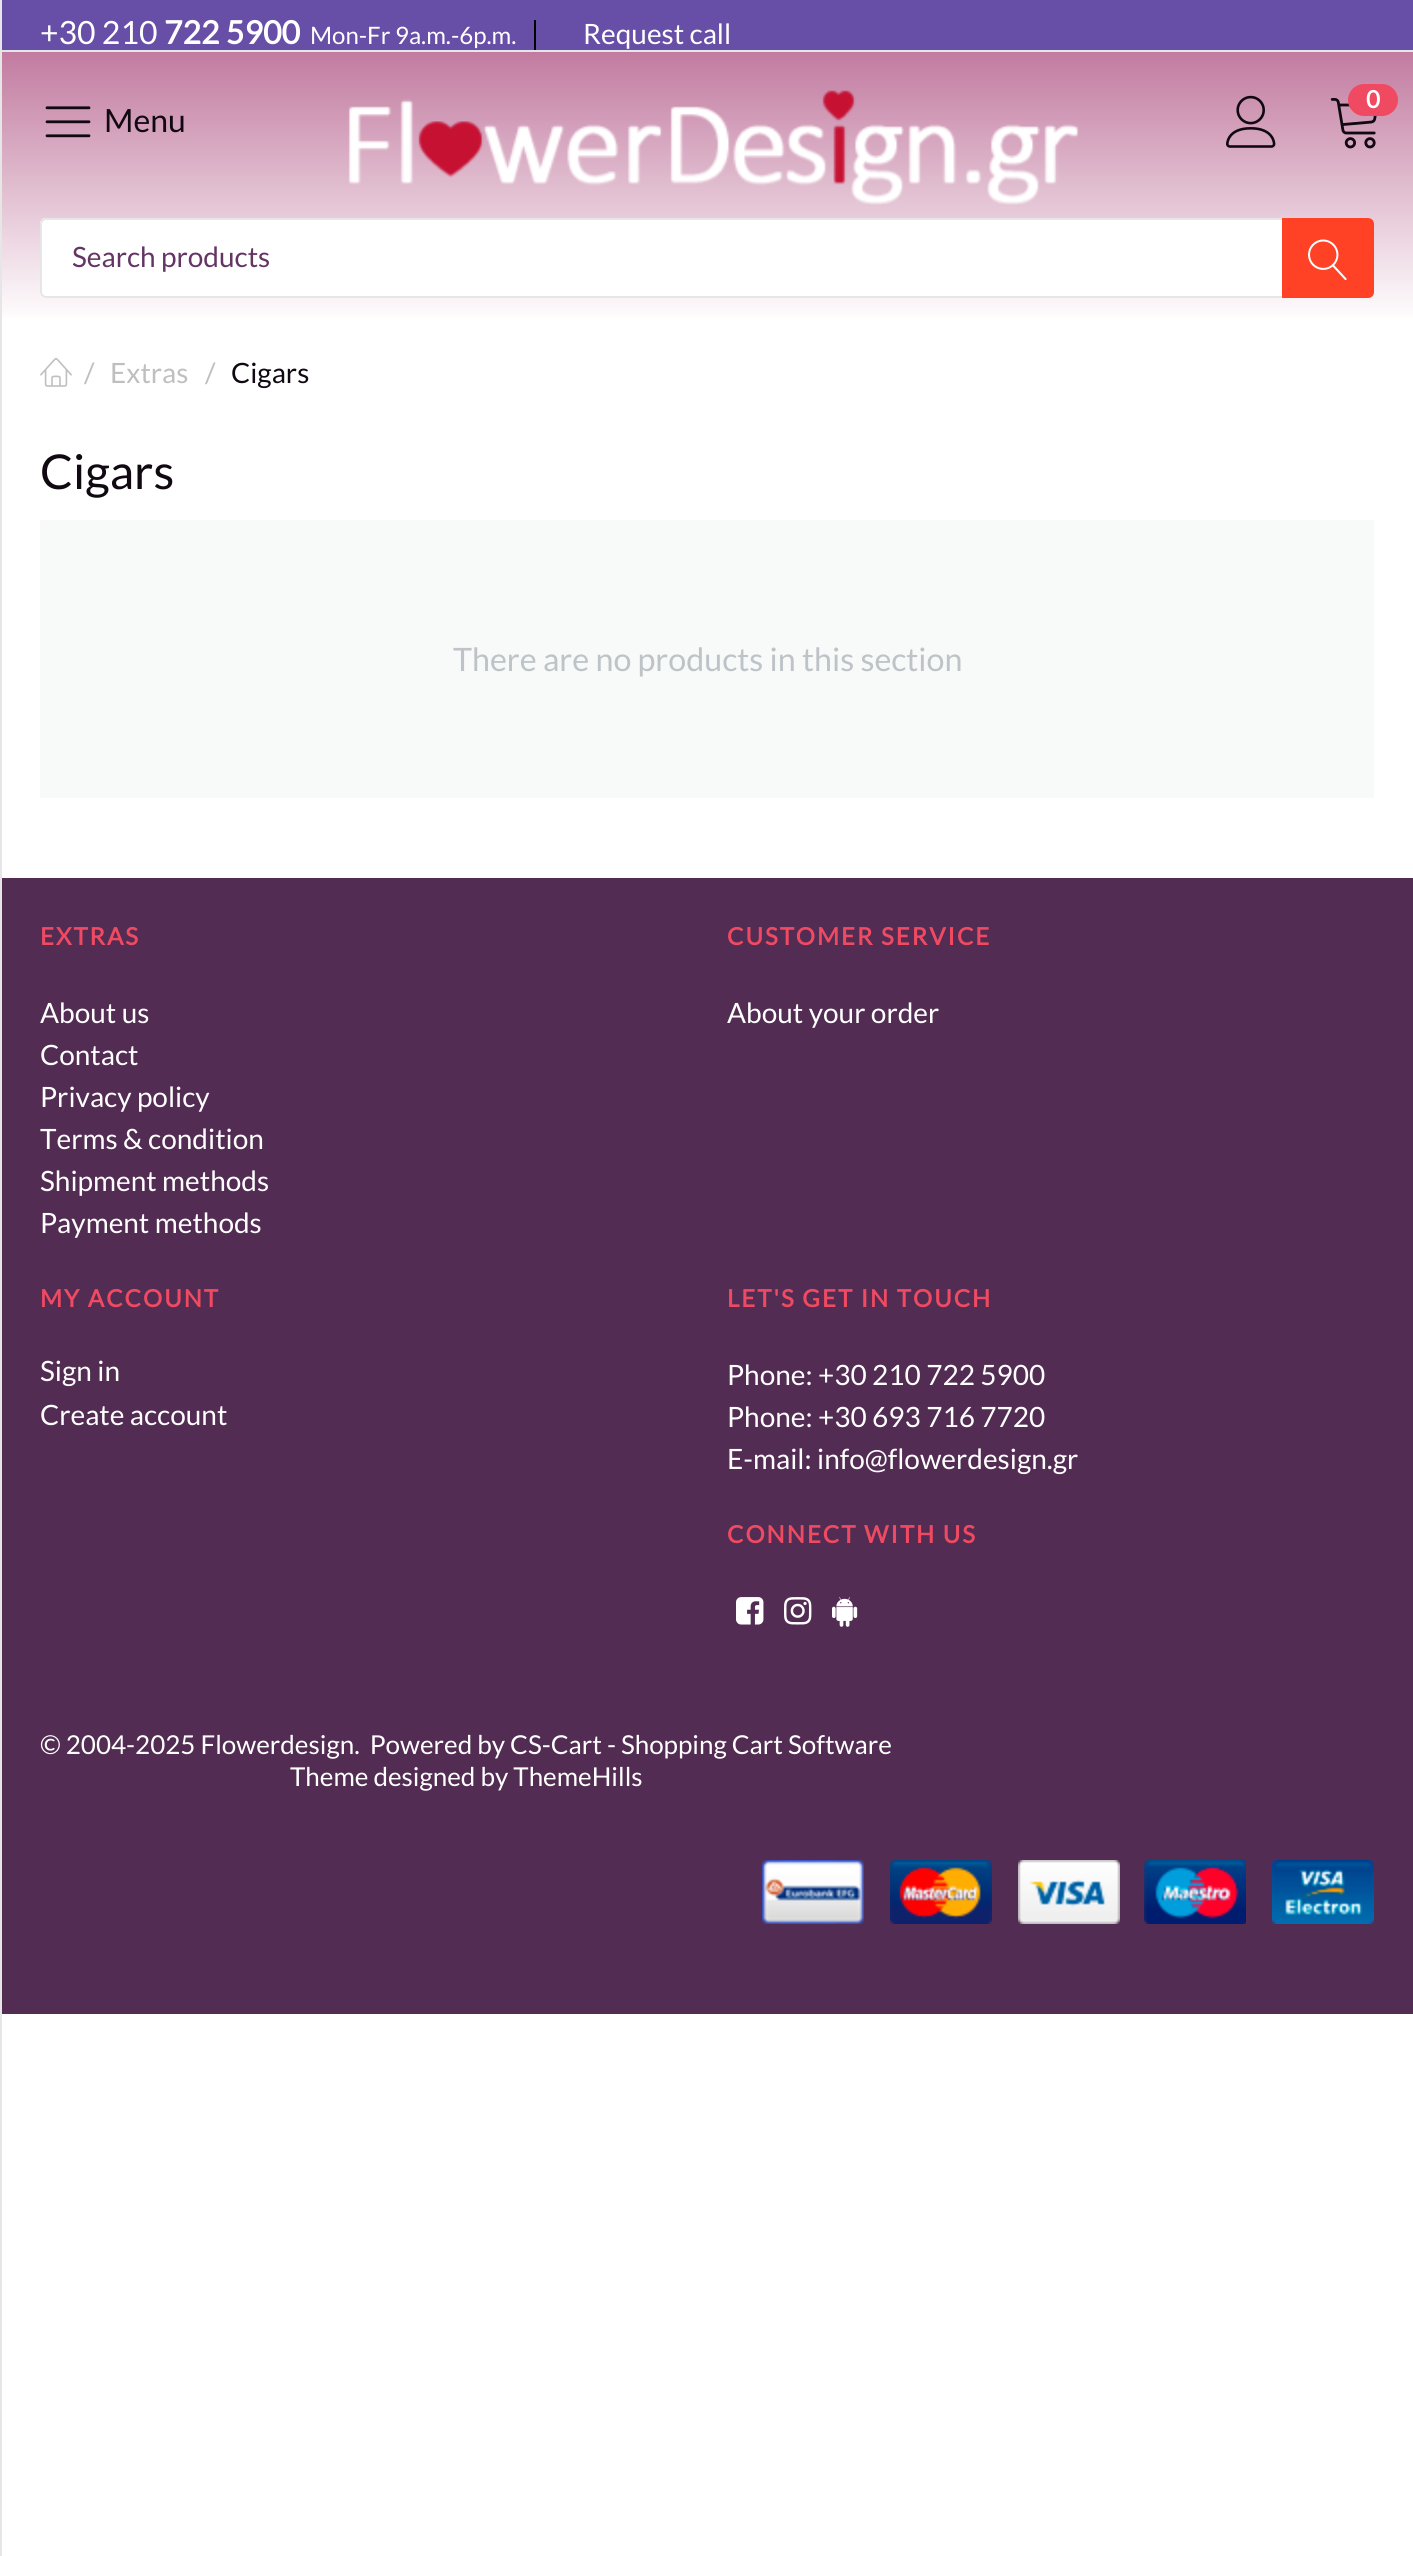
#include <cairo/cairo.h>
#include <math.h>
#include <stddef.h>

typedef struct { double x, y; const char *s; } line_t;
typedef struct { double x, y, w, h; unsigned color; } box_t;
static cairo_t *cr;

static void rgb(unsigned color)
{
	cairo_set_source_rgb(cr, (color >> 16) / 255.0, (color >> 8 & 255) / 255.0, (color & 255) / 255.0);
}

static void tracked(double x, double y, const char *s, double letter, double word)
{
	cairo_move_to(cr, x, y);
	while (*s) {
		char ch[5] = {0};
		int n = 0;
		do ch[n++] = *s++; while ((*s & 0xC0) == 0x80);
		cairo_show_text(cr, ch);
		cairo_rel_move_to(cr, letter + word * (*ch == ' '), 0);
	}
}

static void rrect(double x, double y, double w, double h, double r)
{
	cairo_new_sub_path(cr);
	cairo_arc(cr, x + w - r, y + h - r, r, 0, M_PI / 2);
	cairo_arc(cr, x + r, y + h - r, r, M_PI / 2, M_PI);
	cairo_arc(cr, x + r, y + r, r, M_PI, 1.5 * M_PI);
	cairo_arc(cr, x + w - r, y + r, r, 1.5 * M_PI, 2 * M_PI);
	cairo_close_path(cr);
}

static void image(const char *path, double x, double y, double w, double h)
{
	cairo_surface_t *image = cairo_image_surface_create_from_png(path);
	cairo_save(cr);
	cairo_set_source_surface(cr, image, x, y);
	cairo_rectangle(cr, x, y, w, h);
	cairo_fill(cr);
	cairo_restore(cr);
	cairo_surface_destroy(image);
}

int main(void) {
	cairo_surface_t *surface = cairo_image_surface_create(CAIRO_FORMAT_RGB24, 1413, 2556);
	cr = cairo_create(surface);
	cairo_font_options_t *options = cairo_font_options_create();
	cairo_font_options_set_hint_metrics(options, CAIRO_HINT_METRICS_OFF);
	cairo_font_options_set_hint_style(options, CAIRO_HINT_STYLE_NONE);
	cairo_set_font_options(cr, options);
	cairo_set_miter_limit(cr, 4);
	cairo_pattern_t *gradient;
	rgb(0xffffff);
	cairo_paint(cr);
	{
		static const box_t items[] = {
			{2, 0, 1411, 50, 0x674ea7},
			{0, 50, 1413, 2, 0xe6e6e6},
			{534, 20, 2, 30, 0x000000},
		};
		for (size_t i = 0; i < sizeof items / sizeof *items; i++) {
			rgb(items[i].color);
			cairo_rectangle(cr, items[i].x, items[i].y, items[i].w, items[i].h);
			cairo_fill(cr);
		}
	}
	gradient = cairo_pattern_create_linear(707, 52, 707, 322);
	cairo_pattern_add_color_stop_rgba(gradient, 0, 0.761, 0.482, 0.627, 1);
	cairo_pattern_add_color_stop_rgba(gradient, 1, 1, 1, 1, 1);
	cairo_set_source(cr, gradient);
	cairo_pattern_destroy(gradient);
	cairo_rectangle(cr, 2, 52, 1411, 265);
	cairo_fill(cr);
	image("img/1.png", 348, 90, 731, 115);
	image("img/2.png", 1226, 95, 50, 53);
	image("img/3.png", 1330, 98, 47, 51);
	rgb(0xf04a62);
	rrect(1348, 84, 50, 32, 16);
	cairo_fill(cr);
	rgb(0xffffff);
	rrect(40, 218, 1334, 80, 6);
	cairo_fill(cr);
	rgb(0xe6e6e6);
	cairo_set_fill_rule(cr, CAIRO_FILL_RULE_EVEN_ODD);
	cairo_new_path(cr);
	cairo_move_to(cr, 46, 218);
	cairo_line_to(cr, 1368, 218);
	cairo_curve_to(cr, 1371, 218, 1374, 221, 1374, 224);
	cairo_line_to(cr, 1374, 292);
	cairo_curve_to(cr, 1374, 295, 1371, 298, 1368, 298);
	cairo_line_to(cr, 46, 298);
	cairo_curve_to(cr, 43, 298, 40, 295, 40, 292);
	cairo_line_to(cr, 40, 224);
	cairo_curve_to(cr, 40, 221, 43, 218, 46, 218);
	cairo_close_path(cr);
	cairo_move_to(cr, 46, 220);
	cairo_line_to(cr, 1368, 220);
	cairo_curve_to(cr, 1371, 220, 1374, 222, 1374, 224);
	cairo_line_to(cr, 1374, 292);
	cairo_curve_to(cr, 1374, 294, 1371, 296, 1368, 296);
	cairo_line_to(cr, 46, 296);
	cairo_curve_to(cr, 44, 296, 42, 294, 42, 292);
	cairo_line_to(cr, 42, 224);
	cairo_curve_to(cr, 42, 222, 44, 220, 46, 220);
	cairo_close_path(cr);
	cairo_fill(cr);
	rgb(0xff4226);
	cairo_new_path(cr);
	cairo_move_to(cr, 1282, 218);
	cairo_line_to(cr, 1368, 218);
	cairo_curve_to(cr, 1371.5, 218, 1374, 220.5, 1374, 224);
	cairo_line_to(cr, 1374, 292);
	cairo_curve_to(cr, 1374, 295.5, 1371.5, 298, 1368, 298);
	cairo_line_to(cr, 1282, 298);
	cairo_close_path(cr);
	cairo_fill(cr);
	image("img/4.png", 1308, 239, 39, 42);
	rgb(0xe6e6e6);
	cairo_rectangle(cr, 0, 0, 2, 2556);
	cairo_fill(cr);
	image("img/5.png", 45, 106, 46, 32);
	image("img/6.png", 40, 358, 32, 29);
	rgb(0xf8f9f9);
	cairo_rectangle(cr, 40, 520, 1334, 278);
	cairo_fill(cr);
	rgb(0x522c52);
	cairo_rectangle(cr, 2, 878, 1411, 1136);
	cairo_fill(cr);
	image("img/7.png", 736, 1597, 28, 28);
	image("img/8.png", 784, 1597, 28, 28);
	image("img/9.png", 832, 1597, 26, 30);
	image("img/10.png", 762, 1860, 102, 64);
	image("img/11.png", 890, 1860, 102, 64);
	image("img/12.png", 1018, 1860, 102, 64);
	image("img/13.png", 1144, 1860, 102, 64);
	image("img/14.png", 1272, 1860, 102, 64);
	cairo_select_font_face(cr, "Lato", CAIRO_FONT_SLANT_NORMAL, CAIRO_FONT_WEIGHT_NORMAL);
	cairo_set_font_size(cr, 32);
	rgb(0xffffff);
	cairo_move_to(cr, 40, 44);
	cairo_show_text(cr, "+30 210");
	cairo_select_font_face(cr, "Lato", CAIRO_FONT_SLANT_NORMAL, CAIRO_FONT_WEIGHT_BOLD);
	cairo_move_to(cr, 164, 44);
	cairo_show_text(cr, "722 5900");
	cairo_select_font_face(cr, "Lato", CAIRO_FONT_SLANT_NORMAL, CAIRO_FONT_WEIGHT_NORMAL);
	cairo_set_font_size(cr, 24);
	cairo_move_to(cr, 310, 44);
	cairo_show_text(cr, "Mon-Fr 9a.m.-6p.m.");
	cairo_set_font_size(cr, 28);
	cairo_move_to(cr, 583, 44);
	cairo_show_text(cr, "Request call");
	cairo_select_font_face(cr, "Lato", CAIRO_FONT_SLANT_NORMAL, CAIRO_FONT_WEIGHT_BOLD);
	cairo_set_font_size(cr, 24);
	cairo_move_to(cr, 1366, 108);
	cairo_show_text(cr, "0");
	cairo_select_font_face(cr, "Lato", CAIRO_FONT_SLANT_NORMAL, CAIRO_FONT_WEIGHT_NORMAL);
	cairo_set_font_size(cr, 28);
	rgb(0x643564);
	cairo_move_to(cr, 72, 267);
	cairo_show_text(cr, "Search products");
	cairo_set_font_size(cr, 32);
	rgb(0x110911);
	cairo_move_to(cr, 104, 132);
	cairo_show_text(cr, "Menu");
	cairo_set_font_size(cr, 28);
	rgb(0xbfbfbf);
	{
		static const line_t items[] = {
			{84, 383, "/"},
			{110, 383, "Extras"},
			{205, 383, "/"},
		};
		for (size_t i = 0; i < sizeof items / sizeof *items; i++) {
			cairo_move_to(cr, items[i].x, items[i].y);
			cairo_show_text(cr, items[i].s);
		}
	}
	rgb(0x110911);
	cairo_move_to(cr, 231, 383);
	cairo_show_text(cr, "Cigars");
	cairo_set_font_size(cr, 48);
	cairo_move_to(cr, 40, 489);
	cairo_show_text(cr, "Cigars");
	cairo_set_font_size(cr, 32.25);
	rgb(0xbdc3c7);
	cairo_move_to(cr, 453, 671);
	cairo_show_text(cr, "There are no products in this section");
	cairo_select_font_face(cr, "Lato", CAIRO_FONT_SLANT_NORMAL, CAIRO_FONT_WEIGHT_BOLD);
	cairo_set_font_size(cr, 24);
	rgb(0xf04a62);
	tracked(40, 945, "EXTRAS", 2, 0);
	cairo_select_font_face(cr, "Lato", CAIRO_FONT_SLANT_NORMAL, CAIRO_FONT_WEIGHT_NORMAL);
	cairo_set_font_size(cr, 28);
	rgb(0xffffff);
	{
		static const line_t items[] = {
			{40, 1023, "About us"},
			{40, 1065, "Contact"},
			{40, 1107, "Privacy policy"},
			{40, 1149, "Terms & condition"},
			{40, 1191, "Shipment methods"},
			{40, 1233, "Payment methods"},
		};
		for (size_t i = 0; i < sizeof items / sizeof *items; i++) {
			cairo_move_to(cr, items[i].x, items[i].y);
			cairo_show_text(cr, items[i].s);
		}
	}
	cairo_select_font_face(cr, "Lato", CAIRO_FONT_SLANT_NORMAL, CAIRO_FONT_WEIGHT_BOLD);
	cairo_set_font_size(cr, 24);
	rgb(0xf04a62);
	tracked(727, 945, "CUSTOMER SERVICE", 2, 0);
	cairo_select_font_face(cr, "Lato", CAIRO_FONT_SLANT_NORMAL, CAIRO_FONT_WEIGHT_NORMAL);
	cairo_set_font_size(cr, 28);
	rgb(0xffffff);
	cairo_move_to(cr, 727, 1023);
	cairo_show_text(cr, "About your order");
	cairo_select_font_face(cr, "Lato", CAIRO_FONT_SLANT_NORMAL, CAIRO_FONT_WEIGHT_BOLD);
	cairo_set_font_size(cr, 24);
	rgb(0xf04a62);
	tracked(40, 1307, "MY ACCOUNT", 2, 0);
	cairo_select_font_face(cr, "Lato", CAIRO_FONT_SLANT_NORMAL, CAIRO_FONT_WEIGHT_NORMAL);
	cairo_set_font_size(cr, 28);
	rgb(0xffffff);
	cairo_move_to(cr, 40, 1381);
	cairo_show_text(cr, "Sign in");
	cairo_move_to(cr, 40, 1425);
	cairo_show_text(cr, "Create account");
	cairo_select_font_face(cr, "Lato", CAIRO_FONT_SLANT_NORMAL, CAIRO_FONT_WEIGHT_BOLD);
	cairo_set_font_size(cr, 24);
	rgb(0xf04a62);
	tracked(727, 1307, "LET'S GET IN TOUCH", 2, 0);
	cairo_select_font_face(cr, "Lato", CAIRO_FONT_SLANT_NORMAL, CAIRO_FONT_WEIGHT_NORMAL);
	cairo_set_font_size(cr, 28);
	rgb(0xffffff);
	{
		static const line_t items[] = {
			{727, 1385, "Phone: +30 210 722 5900"},
			{727, 1427, "Phone: +30 693 716 7720"},
			{727, 1469, "E-mail: info@flowerdesign.gr"},
		};
		for (size_t i = 0; i < sizeof items / sizeof *items; i++) {
			cairo_move_to(cr, items[i].x, items[i].y);
			cairo_show_text(cr, items[i].s);
		}
	}
	cairo_select_font_face(cr, "Lato", CAIRO_FONT_SLANT_NORMAL, CAIRO_FONT_WEIGHT_BOLD);
	cairo_set_font_size(cr, 24);
	rgb(0xf04a62);
	tracked(727, 1543, "CONNECT WITH US", 2, 0);
	cairo_select_font_face(cr, "Lato", CAIRO_FONT_SLANT_NORMAL, CAIRO_FONT_WEIGHT_NORMAL);
	cairo_set_font_size(cr, 26);
	rgb(0xffffff);
	cairo_move_to(cr, 40, 1754);
	cairo_show_text(cr, "© 2004-2025 Flowerdesign.  Powered by CS-Cart - Shopping Cart Software");
	cairo_move_to(cr, 290, 1786);
	cairo_show_text(cr, "Theme designed by ThemeHills");
	cairo_surface_write_to_png(surface, "page.png");
	cairo_font_options_destroy(options);
	cairo_destroy(cr);
	cairo_surface_destroy(surface);
	return 0;
}
